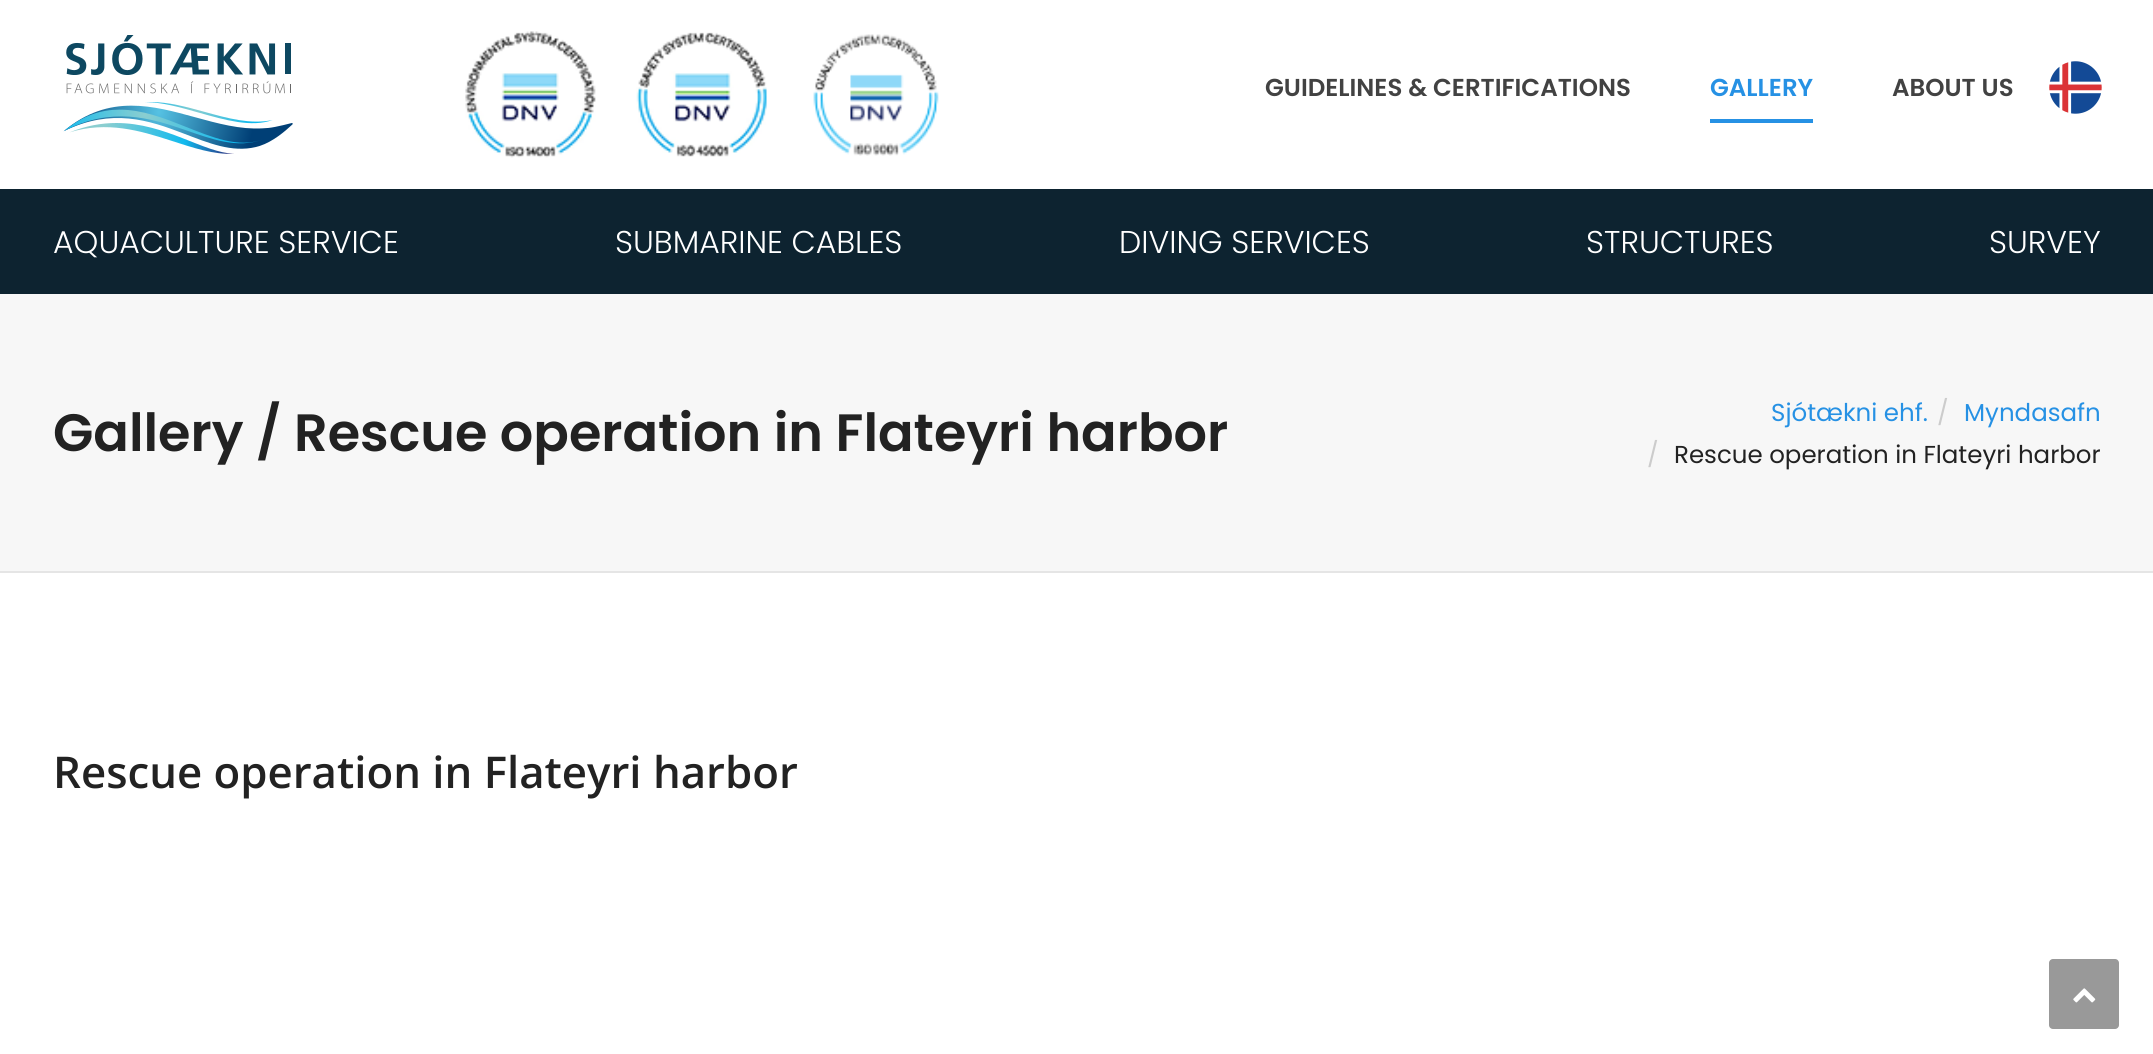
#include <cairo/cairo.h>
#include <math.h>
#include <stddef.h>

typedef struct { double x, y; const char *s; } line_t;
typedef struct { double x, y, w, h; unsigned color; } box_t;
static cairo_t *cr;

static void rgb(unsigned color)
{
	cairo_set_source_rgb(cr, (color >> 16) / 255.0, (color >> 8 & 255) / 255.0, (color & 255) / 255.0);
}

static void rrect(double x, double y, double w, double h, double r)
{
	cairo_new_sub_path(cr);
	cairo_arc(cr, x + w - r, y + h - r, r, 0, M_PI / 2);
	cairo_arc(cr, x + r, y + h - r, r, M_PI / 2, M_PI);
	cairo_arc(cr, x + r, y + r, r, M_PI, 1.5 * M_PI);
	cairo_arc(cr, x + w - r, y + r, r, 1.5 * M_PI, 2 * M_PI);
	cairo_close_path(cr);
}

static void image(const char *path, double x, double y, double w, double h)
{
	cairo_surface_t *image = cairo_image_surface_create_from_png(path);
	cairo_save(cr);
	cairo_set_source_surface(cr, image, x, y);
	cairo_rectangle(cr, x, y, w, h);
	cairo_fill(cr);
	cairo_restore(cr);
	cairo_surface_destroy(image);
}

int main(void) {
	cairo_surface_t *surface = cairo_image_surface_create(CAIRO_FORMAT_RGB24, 2153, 1054);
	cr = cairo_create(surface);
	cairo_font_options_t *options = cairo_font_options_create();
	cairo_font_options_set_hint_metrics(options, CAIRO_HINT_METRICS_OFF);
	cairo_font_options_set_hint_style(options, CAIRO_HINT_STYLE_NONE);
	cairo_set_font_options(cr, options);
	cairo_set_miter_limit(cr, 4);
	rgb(0xffffff);
	cairo_paint(cr);
	image("img/1.png", 63, 35, 230, 119);
	image("img/2.png", 465, 31, 131, 127);
	image("img/3.png", 636, 32, 131, 125);
	image("img/4.png", 813, 34, 126, 122);
	rgb(0x2691e4);
	cairo_rectangle(cr, 1710, 119, 103, 4);
	cairo_fill(cr);
	image("img/5.png", 2049, 61, 53, 53);
	{
		static const box_t items[] = {
			{0, 189, 2153, 105, 0x0d2330},
			{0, 294, 2153, 277, 0xf7f7f7},
			{0, 571, 2153, 2, 0xe5e5e5},
		};
		for (size_t i = 0; i < sizeof items / sizeof *items; i++) {
			rgb(items[i].color);
			cairo_rectangle(cr, items[i].x, items[i].y, items[i].w, items[i].h);
			cairo_fill(cr);
		}
	}
	rgb(0x999999);
	rrect(2049, 959, 70, 70, 4);
	cairo_fill(cr);
	image("img/6.png", 2073, 988, 23, 15);
	cairo_select_font_face(cr, "Poppins SemiBold", CAIRO_FONT_SLANT_NORMAL, CAIRO_FONT_WEIGHT_NORMAL);
	cairo_set_font_size(cr, 24.5);
	rgb(0x424242);
	cairo_move_to(cr, 1265, 96);
	cairo_show_text(cr, "GUIDELINES & CERTIFICATIONS");
	rgb(0x2691e4);
	cairo_move_to(cr, 1710, 96);
	cairo_show_text(cr, "GALLERY");
	rgb(0x424242);
	cairo_move_to(cr, 1892, 96);
	cairo_show_text(cr, "ABOUT US");
	cairo_select_font_face(cr, "Poppins Light", CAIRO_FONT_SLANT_NORMAL, CAIRO_FONT_WEIGHT_NORMAL);
	cairo_set_font_size(cr, 31.5);
	rgb(0xffffff);
	{
		static const line_t items[] = {
			{53, 253, "AQUACULTURE SERVICE"},
			{615, 253, "SUBMARINE CABLES"},
			{1119, 253, "DIVING SERVICES"},
			{1586, 253, "STRUCTURES"},
			{1989, 253, "SURVEY"},
		};
		for (size_t i = 0; i < sizeof items / sizeof *items; i++) {
			cairo_move_to(cr, items[i].x, items[i].y);
			cairo_show_text(cr, items[i].s);
		}
	}
	cairo_select_font_face(cr, "Poppins SemiBold", CAIRO_FONT_SLANT_NORMAL, CAIRO_FONT_WEIGHT_NORMAL);
	cairo_set_font_size(cr, 52.5);
	rgb(0x222222);
	cairo_move_to(cr, 53, 451);
	cairo_show_text(cr, "Gallery / Rescue operation in Flateyri harbor");
	cairo_select_font_face(cr, "Poppins", CAIRO_FONT_SLANT_NORMAL, CAIRO_FONT_WEIGHT_NORMAL);
	cairo_set_font_size(cr, 24.5);
	rgb(0x2691e4);
	cairo_move_to(cr, 1771, 421);
	cairo_show_text(cr, "Sjótækni ehf.");
	rgb(0xcccccc);
	cairo_move_to(cr, 1937, 421);
	cairo_show_text(cr, "/");
	rgb(0x2691e4);
	cairo_move_to(cr, 1964, 421);
	cairo_show_text(cr, "Myndasafn");
	rgb(0xcccccc);
	cairo_move_to(cr, 1647, 463);
	cairo_show_text(cr, "/");
	rgb(0x222222);
	cairo_move_to(cr, 1674, 463);
	cairo_show_text(cr, "Rescue operation in Flateyri harbor");
	cairo_select_font_face(cr, "Open Sans SemiBold", CAIRO_FONT_SLANT_NORMAL, CAIRO_FONT_WEIGHT_NORMAL);
	cairo_set_font_size(cr, 43.75);
	cairo_move_to(cr, 53, 788);
	cairo_show_text(cr, "Rescue operation in Flateyri harbor");
	cairo_surface_write_to_png(surface, "page.png");
	cairo_font_options_destroy(options);
	cairo_destroy(cr);
	cairo_surface_destroy(surface);
	return 0;
}
